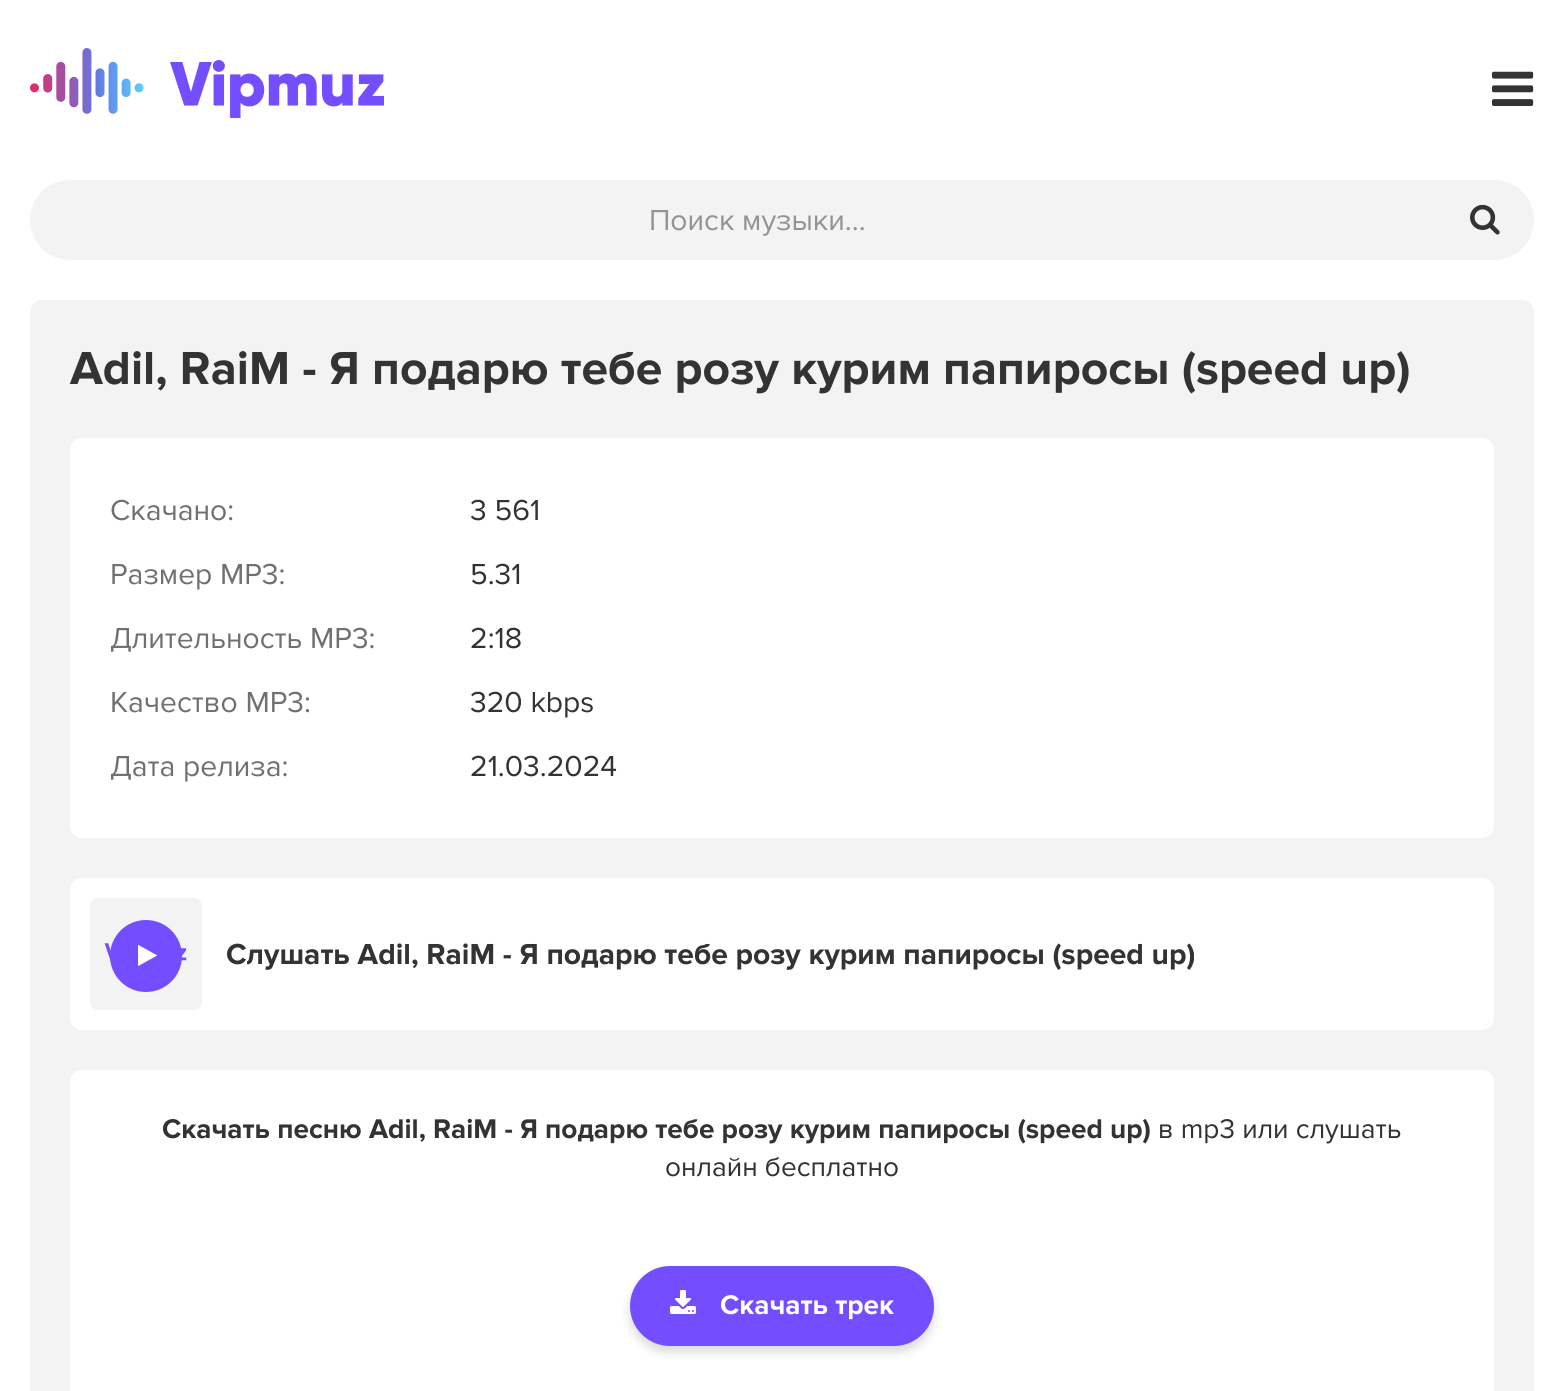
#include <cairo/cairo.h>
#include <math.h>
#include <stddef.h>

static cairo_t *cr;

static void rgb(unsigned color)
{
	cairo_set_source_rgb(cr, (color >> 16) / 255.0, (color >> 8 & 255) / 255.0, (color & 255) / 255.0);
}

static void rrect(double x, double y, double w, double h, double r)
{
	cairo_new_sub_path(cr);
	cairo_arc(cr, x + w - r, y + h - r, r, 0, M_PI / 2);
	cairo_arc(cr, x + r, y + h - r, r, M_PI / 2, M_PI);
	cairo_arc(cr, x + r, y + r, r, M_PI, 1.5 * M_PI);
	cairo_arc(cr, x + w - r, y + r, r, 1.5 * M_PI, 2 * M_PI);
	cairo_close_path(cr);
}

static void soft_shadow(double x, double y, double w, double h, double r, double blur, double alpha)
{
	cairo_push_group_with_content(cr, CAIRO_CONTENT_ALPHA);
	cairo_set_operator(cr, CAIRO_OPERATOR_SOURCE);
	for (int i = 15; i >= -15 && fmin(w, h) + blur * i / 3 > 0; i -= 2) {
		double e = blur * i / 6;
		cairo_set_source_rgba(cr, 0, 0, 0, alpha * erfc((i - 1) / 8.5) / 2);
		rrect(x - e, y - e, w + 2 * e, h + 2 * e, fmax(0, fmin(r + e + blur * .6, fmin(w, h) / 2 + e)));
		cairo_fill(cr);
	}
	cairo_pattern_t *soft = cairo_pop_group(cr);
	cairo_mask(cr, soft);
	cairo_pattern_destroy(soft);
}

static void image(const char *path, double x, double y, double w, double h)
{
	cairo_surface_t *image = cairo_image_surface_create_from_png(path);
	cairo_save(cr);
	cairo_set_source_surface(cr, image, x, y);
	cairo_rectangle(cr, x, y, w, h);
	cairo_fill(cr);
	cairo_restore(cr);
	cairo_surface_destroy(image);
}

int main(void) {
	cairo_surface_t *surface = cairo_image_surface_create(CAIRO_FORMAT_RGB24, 1563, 1391);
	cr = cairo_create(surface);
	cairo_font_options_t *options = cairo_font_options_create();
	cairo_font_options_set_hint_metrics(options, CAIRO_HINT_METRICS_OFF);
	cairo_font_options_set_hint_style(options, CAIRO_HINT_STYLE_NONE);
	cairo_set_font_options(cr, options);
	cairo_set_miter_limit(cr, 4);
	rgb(0xffffff);
	cairo_paint(cr);
	image("img/1.png", 30, 48, 354, 70);
	image("img/2.png", 1492, 71, 42, 35);
	rgb(0xf3f3f3);
	rrect(30, 180, 1504, 80, 40);
	cairo_fill(cr);
	image("img/3.png", 1470, 204, 30, 31);
	rrect(30, 300, 1504, 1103, 12);
	cairo_fill(cr);
	rgb(0xffffff);
	rrect(70, 438, 1424, 400, 12);
	cairo_fill(cr);
	rrect(70, 878, 1424, 152, 12);
	cairo_fill(cr);
	image("img/4.png", 90, 898, 112, 112);
	rgb(0x744dfe);
	cairo_arc(cr, 146, 956, 36, 0, 2 * M_PI);
	cairo_fill(cr);
	image("img/5.png", 138, 945, 19, 21);
	rgb(0xffffff);
	rrect(70, 1070, 1424, 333, 12);
	cairo_fill(cr);
	rgb(0x000000);
	soft_shadow(630, 1272, 304, 80, 40, 5, 0.15);
	rgb(0x744dfe);
	rrect(630, 1266, 304, 80, 40);
	cairo_fill(cr);
	image("img/6.png", 670, 1290, 26, 24);
	cairo_select_font_face(cr, "Proxima Nova", CAIRO_FONT_SLANT_NORMAL, CAIRO_FONT_WEIGHT_NORMAL);
	cairo_set_font_size(cr, 30);
	rgb(0x939393);
	cairo_move_to(cr, 649, 230);
	cairo_show_text(cr, "Поиск музыки...");
	cairo_select_font_face(cr, "Proxima Nova", CAIRO_FONT_SLANT_NORMAL, CAIRO_FONT_WEIGHT_BOLD);
	cairo_set_font_size(cr, 48);
	rgb(0x333333);
	cairo_move_to(cr, 70, 384);
	cairo_show_text(cr, "Adil, RaiM - Я подарю тебе розу курим папиросы (speed up)");
	cairo_select_font_face(cr, "Proxima Nova", CAIRO_FONT_SLANT_NORMAL, CAIRO_FONT_WEIGHT_NORMAL);
	cairo_set_font_size(cr, 30);
	rgb(0x707070);
	cairo_move_to(cr, 110, 520);
	cairo_show_text(cr, "Скачано:");
	rgb(0x333333);
	cairo_move_to(cr, 470, 520);
	cairo_show_text(cr, "3 561");
	rgb(0x707070);
	cairo_move_to(cr, 110, 584);
	cairo_show_text(cr, "Размер MP3:");
	rgb(0x333333);
	cairo_move_to(cr, 470, 584);
	cairo_show_text(cr, "5.31");
	rgb(0x707070);
	cairo_move_to(cr, 110, 648);
	cairo_show_text(cr, "Длительность MP3:");
	rgb(0x333333);
	cairo_move_to(cr, 470, 648);
	cairo_show_text(cr, "2:18");
	rgb(0x707070);
	cairo_move_to(cr, 110, 712);
	cairo_show_text(cr, "Качество MP3:");
	rgb(0x333333);
	cairo_move_to(cr, 470, 712);
	cairo_show_text(cr, "320 kbps");
	rgb(0x707070);
	cairo_move_to(cr, 110, 776);
	cairo_show_text(cr, "Дата релиза:");
	rgb(0x333333);
	cairo_move_to(cr, 470, 776);
	cairo_show_text(cr, "21.03.2024");
	cairo_select_font_face(cr, "Proxima Nova", CAIRO_FONT_SLANT_NORMAL, CAIRO_FONT_WEIGHT_BOLD);
	cairo_move_to(cr, 226, 964);
	cairo_show_text(cr, "Слушать Adil, RaiM - Я подарю тебе розу курим папиросы (speed up)");
	cairo_set_font_size(cr, 28);
	cairo_move_to(cr, 162, 1138);
	cairo_show_text(cr, "Скачать песню Adil, RaiM - Я подарю тебе розу курим папиросы (speed up)");
	cairo_select_font_face(cr, "Proxima Nova", CAIRO_FONT_SLANT_NORMAL, CAIRO_FONT_WEIGHT_NORMAL);
	cairo_move_to(cr, 1158, 1138);
	cairo_show_text(cr, "в mp3 или слушать");
	cairo_move_to(cr, 665, 1176);
	cairo_show_text(cr, "онлайн бесплатно");
	cairo_select_font_face(cr, "Proxima Nova", CAIRO_FONT_SLANT_NORMAL, CAIRO_FONT_WEIGHT_BOLD);
	rgb(0xffffff);
	cairo_move_to(cr, 720, 1314);
	cairo_show_text(cr, "Скачать трек");
	cairo_surface_write_to_png(surface, "page.png");
	cairo_font_options_destroy(options);
	cairo_destroy(cr);
	cairo_surface_destroy(surface);
	return 0;
}
